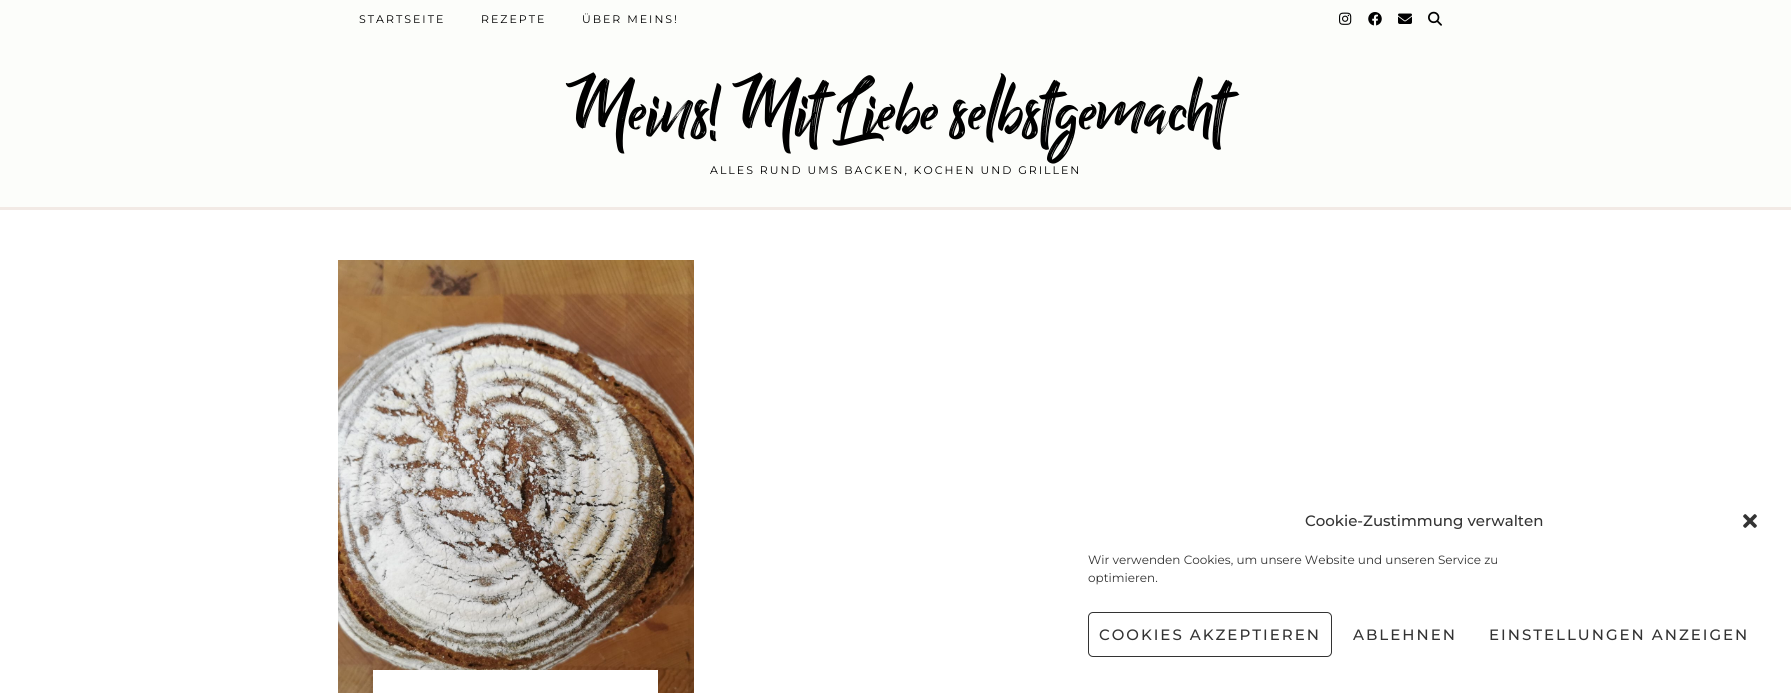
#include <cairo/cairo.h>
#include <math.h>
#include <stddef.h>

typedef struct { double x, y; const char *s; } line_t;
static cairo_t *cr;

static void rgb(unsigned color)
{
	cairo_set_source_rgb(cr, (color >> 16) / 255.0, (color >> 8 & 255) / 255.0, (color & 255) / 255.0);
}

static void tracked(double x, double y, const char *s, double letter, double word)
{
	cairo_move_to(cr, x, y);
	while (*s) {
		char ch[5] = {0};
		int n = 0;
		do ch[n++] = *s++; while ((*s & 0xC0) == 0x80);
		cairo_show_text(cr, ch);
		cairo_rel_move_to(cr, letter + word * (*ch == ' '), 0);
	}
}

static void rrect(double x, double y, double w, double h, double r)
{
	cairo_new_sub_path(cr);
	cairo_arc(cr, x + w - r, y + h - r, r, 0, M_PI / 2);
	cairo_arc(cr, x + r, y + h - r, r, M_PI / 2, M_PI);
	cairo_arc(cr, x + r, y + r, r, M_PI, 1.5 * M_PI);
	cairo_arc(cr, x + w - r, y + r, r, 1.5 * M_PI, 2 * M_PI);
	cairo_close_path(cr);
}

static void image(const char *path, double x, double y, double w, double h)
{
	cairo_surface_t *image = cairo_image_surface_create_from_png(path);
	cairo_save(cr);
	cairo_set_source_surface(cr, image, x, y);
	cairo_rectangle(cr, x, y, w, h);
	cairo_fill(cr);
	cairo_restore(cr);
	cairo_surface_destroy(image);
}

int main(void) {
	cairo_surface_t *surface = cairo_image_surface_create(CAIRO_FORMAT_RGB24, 1791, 693);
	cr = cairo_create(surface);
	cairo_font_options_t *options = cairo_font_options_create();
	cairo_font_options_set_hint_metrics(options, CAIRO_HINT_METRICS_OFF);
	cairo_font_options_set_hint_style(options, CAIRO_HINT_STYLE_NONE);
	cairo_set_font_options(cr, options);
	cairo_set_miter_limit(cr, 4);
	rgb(0xffffff);
	cairo_paint(cr);
	rgb(0xfcfdfa);
	cairo_rectangle(cr, 0, 0, 1791, 207);
	cairo_fill(cr);
	image("img/1.png", 1339, 12, 13, 13);
	image("img/2.png", 1368, 12, 14, 14);
	image("img/3.png", 1398, 13, 14, 11);
	image("img/4.png", 1428, 11, 14, 15);
	rgb(0xf2eae5);
	cairo_rectangle(cr, 0, 207, 1791, 3);
	cairo_fill(cr);
	image("img/5.png", 338, 260, 356, 433);
	rgb(0xffffff);
	cairo_rectangle(cr, 373, 670, 285, 23);
	cairo_fill(cr);
	image("img/6.png", 1743, 514, 14, 14);
	rrect(1088.5, 612.5, 243, 44, 4.5);
	rgb(0x333333);
	cairo_set_line_width(cr, 1);
	cairo_stroke(cr);
	cairo_select_font_face(cr, "Montserrat Thin", CAIRO_FONT_SLANT_NORMAL, CAIRO_FONT_WEIGHT_NORMAL);
	cairo_set_font_size(cr, 11);
	rgb(0x000000);
	{
		static const line_t items[] = {
			{359, 23, "STARTSEITE"},
			{481, 23, "REZEPTE"},
			{582, 23, "ÜBER MEINS!"},
		};
		for (size_t i = 0; i < sizeof items / sizeof *items; i++) {
			tracked(items[i].x, items[i].y, items[i].s, 2, 0);
		}
	}
	cairo_select_font_face(cr, "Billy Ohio", CAIRO_FONT_SLANT_NORMAL, CAIRO_FONT_WEIGHT_NORMAL);
	cairo_set_font_size(cr, 80);
	cairo_move_to(cr, 565, 130);
	cairo_show_text(cr, "Meins! Mit Liebe selbstgemacht");
	cairo_select_font_face(cr, "Montserrat Thin", CAIRO_FONT_SLANT_NORMAL, CAIRO_FONT_WEIGHT_NORMAL);
	cairo_set_font_size(cr, 11);
	tracked(710, 174, "ALLES RUND UMS BACKEN, KOCHEN UND GRILLEN", 2, 0);
	cairo_select_font_face(cr, "Montserrat Medium", CAIRO_FONT_SLANT_NORMAL, CAIRO_FONT_WEIGHT_NORMAL);
	cairo_set_font_size(cr, 15);
	rgb(0x333333);
	cairo_move_to(cr, 1305, 526);
	cairo_show_text(cr, "Cookie-Zustimmung verwalten");
	cairo_select_font_face(cr, "Montserrat Thin", CAIRO_FONT_SLANT_NORMAL, CAIRO_FONT_WEIGHT_NORMAL);
	cairo_set_font_size(cr, 12);
	cairo_move_to(cr, 1088, 564);
	cairo_show_text(cr, "Wir verwenden Cookies, um unsere Website und unseren Service zu");
	cairo_move_to(cr, 1088, 582);
	cairo_show_text(cr, "optimieren.");
	cairo_select_font_face(cr, "Montserrat Medium", CAIRO_FONT_SLANT_NORMAL, CAIRO_FONT_WEIGHT_NORMAL);
	cairo_set_font_size(cr, 15);
	{
		static const line_t items[] = {
			{1099, 640, "COOKIES AKZEPTIEREN"},
			{1353, 640, "ABLEHNEN"},
			{1489, 640, "EINSTELLUNGEN ANZEIGEN"},
		};
		for (size_t i = 0; i < sizeof items / sizeof *items; i++) {
			tracked(items[i].x, items[i].y, items[i].s, 2, 0);
		}
	}
	cairo_surface_write_to_png(surface, "page.png");
	cairo_font_options_destroy(options);
	cairo_destroy(cr);
	cairo_surface_destroy(surface);
	return 0;
}
